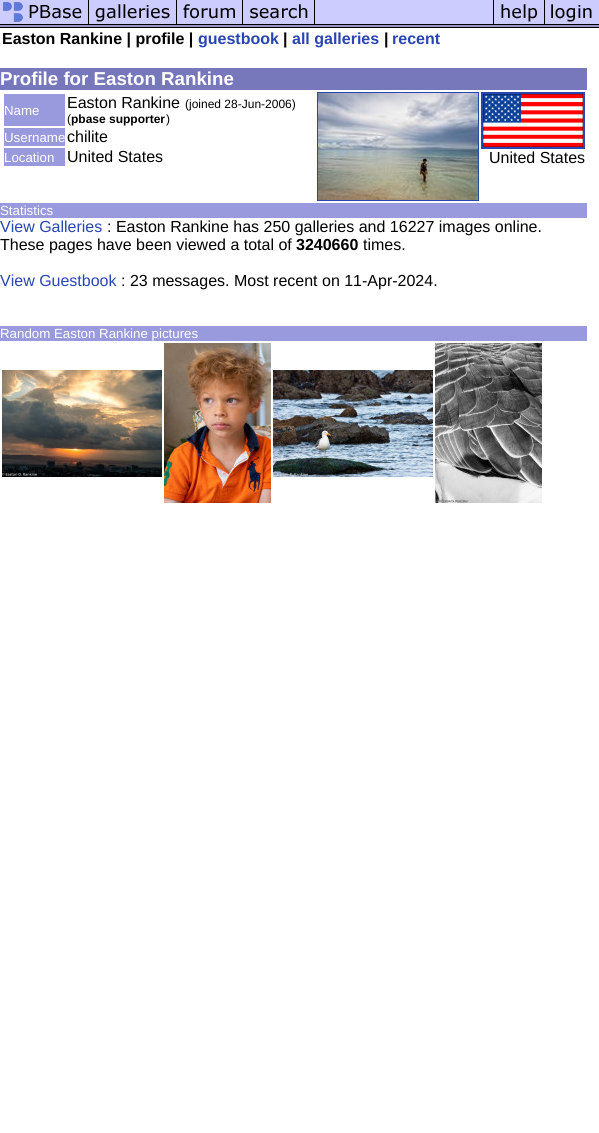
#include <cairo/cairo.h>
#include <math.h>
#include <stddef.h>

typedef struct { double x, y, w, h; unsigned color; } box_t;
static cairo_t *cr;

static void rgb(unsigned color)
{
	cairo_set_source_rgb(cr, (color >> 16) / 255.0, (color >> 8 & 255) / 255.0, (color & 255) / 255.0);
}

static void image(const char *path, double x, double y, double w, double h)
{
	cairo_surface_t *image = cairo_image_surface_create_from_png(path);
	cairo_save(cr);
	cairo_set_source_surface(cr, image, x, y);
	cairo_rectangle(cr, x, y, w, h);
	cairo_fill(cr);
	cairo_restore(cr);
	cairo_surface_destroy(image);
}

int main(void) {
	cairo_surface_t *surface = cairo_image_surface_create(CAIRO_FORMAT_RGB24, 599, 1133);
	cr = cairo_create(surface);
	cairo_font_options_t *options = cairo_font_options_create();
	cairo_font_options_set_hint_metrics(options, CAIRO_HINT_METRICS_OFF);
	cairo_font_options_set_hint_style(options, CAIRO_HINT_STYLE_NONE);
	cairo_set_font_options(cr, options);
	cairo_set_miter_limit(cr, 4);
	rgb(0xffffff);
	cairo_paint(cr);
	image("img/1.png", 0, 0, 89, 28);
	image("img/2.png", 89, 0, 88, 28);
	image("img/3.png", 177, 0, 66, 28);
	image("img/4.png", 243, 0, 72, 28);
	image("img/5.png", 315, 0, 178, 28);
	image("img/6.png", 493, 0, 52, 28);
	image("img/7.png", 545, 0, 54, 28);
	{
		static const box_t items[] = {
			{0, 68, 587, 22, 0x7777bb},
			{4, 94, 61, 32, 0x9999dd},
			{4, 128, 61, 18, 0x9999dd},
			{4, 148, 61, 18, 0x9999dd},
		};
		for (size_t i = 0; i < sizeof items / sizeof *items; i++) {
			rgb(items[i].color);
			cairo_rectangle(cr, items[i].x, items[i].y, items[i].w, items[i].h);
			cairo_fill(cr);
		}
	}
	cairo_rectangle(cr, 317.5, 92.5, 161, 108);
	rgb(0x2845b1);
	cairo_set_line_width(cr, 1);
	cairo_stroke(cr);
	image("img/8.png", 318, 93, 160, 107);
	cairo_rectangle(cr, 482, 93, 102, 55);
	cairo_set_line_width(cr, 2);
	cairo_stroke(cr);
	image("img/9.png", 483, 94, 100, 53);
	rgb(0x9999dd);
	cairo_rectangle(cr, 0, 203, 587, 15);
	cairo_fill(cr);
	cairo_rectangle(cr, 0, 326, 587, 15);
	cairo_fill(cr);
	image("img/10.png", 2, 370, 160, 107);
	image("img/11.png", 164, 343, 107, 160);
	image("img/12.png", 273, 370, 160, 107);
	image("img/13.png", 435, 343, 107, 160);
	cairo_select_font_face(cr, "Liberation Sans", CAIRO_FONT_SLANT_NORMAL, CAIRO_FONT_WEIGHT_BOLD);
	cairo_set_font_size(cr, 16);
	rgb(0x000000);
	cairo_move_to(cr, 2, 44);
	cairo_show_text(cr, "Easton Rankine | profile |");
	rgb(0x2845b1);
	cairo_move_to(cr, 198, 44);
	cairo_show_text(cr, "guestbook");
	rgb(0x000000);
	cairo_move_to(cr, 283, 44);
	cairo_show_text(cr, "|");
	rgb(0x2845b1);
	cairo_move_to(cr, 292, 44);
	cairo_show_text(cr, "all galleries");
	rgb(0x000000);
	cairo_move_to(cr, 384, 44);
	cairo_show_text(cr, "|");
	rgb(0x2845b1);
	cairo_move_to(cr, 392, 44);
	cairo_show_text(cr, "recent");
	cairo_set_font_size(cr, 18.7);
	rgb(0xffffff);
	cairo_move_to(cr, 0, 85);
	cairo_show_text(cr, "Profile for Easton Rankine");
	cairo_select_font_face(cr, "Liberation Sans", CAIRO_FONT_SLANT_NORMAL, CAIRO_FONT_WEIGHT_NORMAL);
	cairo_set_font_size(cr, 13.3);
	cairo_move_to(cr, 4, 115);
	cairo_show_text(cr, "Name");
	cairo_set_font_size(cr, 16);
	rgb(0x000000);
	cairo_move_to(cr, 67, 108);
	cairo_show_text(cr, "Easton Rankine");
	cairo_set_font_size(cr, 12);
	cairo_move_to(cr, 185, 108);
	cairo_show_text(cr, "(joined 28-Jun-2006)");
	cairo_move_to(cr, 67, 123);
	cairo_show_text(cr, "(");
	cairo_select_font_face(cr, "Liberation Sans", CAIRO_FONT_SLANT_NORMAL, CAIRO_FONT_WEIGHT_BOLD);
	cairo_move_to(cr, 71, 123);
	cairo_show_text(cr, "pbase supporter");
	cairo_select_font_face(cr, "Liberation Sans", CAIRO_FONT_SLANT_NORMAL, CAIRO_FONT_WEIGHT_NORMAL);
	cairo_move_to(cr, 166, 123);
	cairo_show_text(cr, ")");
	cairo_set_font_size(cr, 13.3);
	rgb(0xffffff);
	cairo_move_to(cr, 4, 142);
	cairo_show_text(cr, "Username");
	cairo_set_font_size(cr, 16);
	rgb(0x000000);
	cairo_move_to(cr, 67, 142);
	cairo_show_text(cr, "chilite");
	cairo_set_font_size(cr, 13.3);
	rgb(0xffffff);
	cairo_move_to(cr, 4, 162);
	cairo_show_text(cr, "Location");
	cairo_set_font_size(cr, 16);
	rgb(0x000000);
	cairo_move_to(cr, 67, 162);
	cairo_show_text(cr, "United States");
	cairo_move_to(cr, 489, 163);
	cairo_show_text(cr, "United States");
	cairo_set_font_size(cr, 13.3);
	rgb(0xffffff);
	cairo_move_to(cr, 0, 215);
	cairo_show_text(cr, "Statistics");
	cairo_set_font_size(cr, 16);
	rgb(0x2845b1);
	cairo_move_to(cr, 0, 232);
	cairo_show_text(cr, "View Galleries");
	rgb(0x000000);
	cairo_move_to(cr, 107, 232);
	cairo_show_text(cr, ": Easton Rankine has 250 galleries and 16227 images online.");
	cairo_move_to(cr, 0, 250);
	cairo_show_text(cr, "These pages have been viewed a total of");
	cairo_select_font_face(cr, "Liberation Sans", CAIRO_FONT_SLANT_NORMAL, CAIRO_FONT_WEIGHT_BOLD);
	cairo_move_to(cr, 296, 250);
	cairo_show_text(cr, "3240660");
	cairo_select_font_face(cr, "Liberation Sans", CAIRO_FONT_SLANT_NORMAL, CAIRO_FONT_WEIGHT_NORMAL);
	cairo_move_to(cr, 363, 250);
	cairo_show_text(cr, "times.");
	rgb(0x2845b1);
	cairo_move_to(cr, 0, 286);
	cairo_show_text(cr, "View Guestbook");
	rgb(0x000000);
	cairo_move_to(cr, 121, 286);
	cairo_show_text(cr, ": 23 messages. Most recent on 11-Apr-2024.");
	cairo_set_font_size(cr, 13.3);
	rgb(0xffffff);
	cairo_move_to(cr, 0, 338);
	cairo_show_text(cr, "Random Easton Rankine pictures");
	cairo_surface_write_to_png(surface, "page.png");
	cairo_font_options_destroy(options);
	cairo_destroy(cr);
	cairo_surface_destroy(surface);
	return 0;
}
